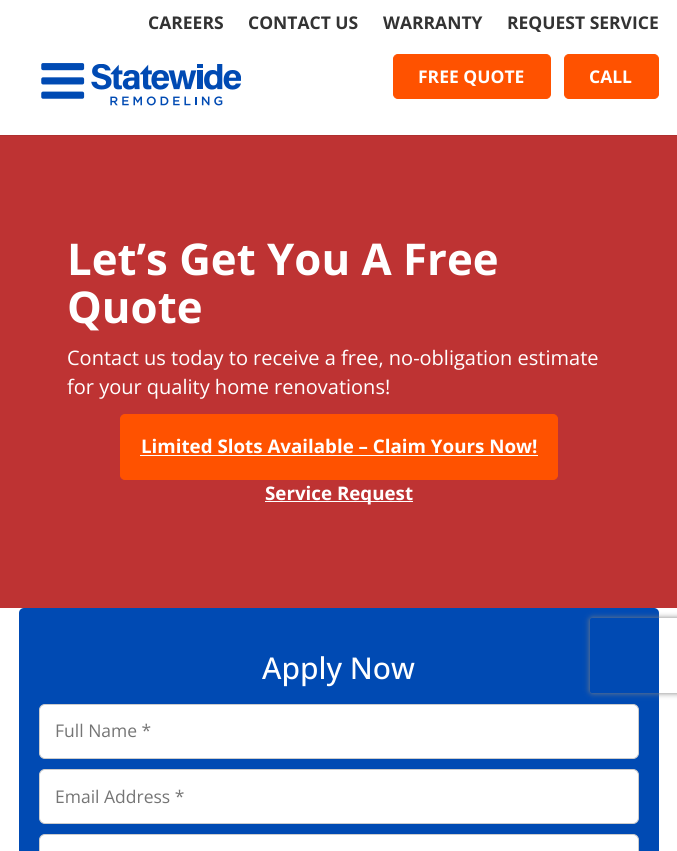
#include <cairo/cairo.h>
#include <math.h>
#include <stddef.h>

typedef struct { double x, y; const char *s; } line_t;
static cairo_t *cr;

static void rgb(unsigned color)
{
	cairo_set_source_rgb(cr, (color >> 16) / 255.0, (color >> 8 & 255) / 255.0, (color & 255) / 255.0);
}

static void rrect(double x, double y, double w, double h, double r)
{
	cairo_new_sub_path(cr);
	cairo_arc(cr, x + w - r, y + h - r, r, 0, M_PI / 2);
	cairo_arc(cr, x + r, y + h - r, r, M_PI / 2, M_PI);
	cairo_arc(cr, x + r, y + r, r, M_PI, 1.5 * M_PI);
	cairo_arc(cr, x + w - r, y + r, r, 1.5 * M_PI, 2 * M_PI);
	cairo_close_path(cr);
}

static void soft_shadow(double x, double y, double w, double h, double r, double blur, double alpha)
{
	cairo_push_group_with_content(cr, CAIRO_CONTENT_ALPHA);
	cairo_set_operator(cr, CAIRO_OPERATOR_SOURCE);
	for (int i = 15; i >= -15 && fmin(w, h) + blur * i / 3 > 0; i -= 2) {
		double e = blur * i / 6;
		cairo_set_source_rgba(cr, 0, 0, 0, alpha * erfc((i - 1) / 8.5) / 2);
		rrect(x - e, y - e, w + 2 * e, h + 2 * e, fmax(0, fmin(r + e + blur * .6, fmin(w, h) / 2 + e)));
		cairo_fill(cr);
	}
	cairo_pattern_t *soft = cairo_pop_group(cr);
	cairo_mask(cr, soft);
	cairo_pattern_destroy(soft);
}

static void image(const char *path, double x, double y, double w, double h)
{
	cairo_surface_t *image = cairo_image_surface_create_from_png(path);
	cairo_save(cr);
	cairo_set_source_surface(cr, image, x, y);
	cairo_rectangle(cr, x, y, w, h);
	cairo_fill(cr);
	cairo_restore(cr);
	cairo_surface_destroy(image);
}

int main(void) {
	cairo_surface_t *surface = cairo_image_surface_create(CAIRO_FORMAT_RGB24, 677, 851);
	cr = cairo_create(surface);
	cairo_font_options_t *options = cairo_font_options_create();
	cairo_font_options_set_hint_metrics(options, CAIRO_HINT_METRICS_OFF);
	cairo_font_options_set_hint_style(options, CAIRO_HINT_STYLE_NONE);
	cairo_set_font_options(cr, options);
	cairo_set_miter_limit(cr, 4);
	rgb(0xffffff);
	cairo_paint(cr);
	rgb(0xaf2f2f);
	cairo_new_path(cr);
	cairo_move_to(cr, 0, 135);
	cairo_line_to(cr, 0, 136);
	cairo_line_to(cr, 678, 136);
	cairo_line_to(cr, 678, 1);
	cairo_line_to(cr, 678, 135);
	cairo_close_path(cr);
	cairo_fill(cr);
	image("img/1.png", 41, 63, 44, 36);
	image("img/2.png", 91, 64, 150, 42);
	rgb(0xff5200);
	rrect(393.5, 54.5, 157, 44, 4.5);
	cairo_fill_preserve(cr);
	cairo_set_line_width(cr, 1);
	cairo_stroke(cr);
	rrect(564.5, 54.5, 94, 44, 4.5);
	cairo_fill_preserve(cr);
	cairo_stroke(cr);
	rgb(0xbe3333);
	cairo_rectangle(cr, 0, 136, 677, 472);
	cairo_fill(cr);
	rgb(0xff5200);
	rrect(120.5, 414.5, 437, 65, 4.5);
	cairo_fill_preserve(cr);
	cairo_stroke(cr);
	rgb(0xffffff);
	cairo_rectangle(cr, 140, 455, 398, 1);
	cairo_fill(cr);
	cairo_rectangle(cr, 265, 501, 148, 1);
	cairo_fill(cr);
	rgb(0x004ab3);
	rrect(19, 608, 640, 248, 5);
	cairo_fill(cr);
	rgb(0xffffff);
	rrect(39.5, 704.5, 599, 54, 5.5);
	cairo_fill_preserve(cr);
	rgb(0xcccccc);
	cairo_stroke(cr);
	rgb(0xffffff);
	rrect(39.5, 769.5, 599, 54, 5.5);
	cairo_fill_preserve(cr);
	rgb(0xcccccc);
	cairo_stroke(cr);
	rgb(0xffffff);
	rrect(39.5, 834.5, 599, 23, 5.5);
	cairo_fill_preserve(cr);
	rgb(0xcccccc);
	cairo_stroke(cr);
	cairo_save(cr);
	cairo_set_fill_rule(cr, CAIRO_FILL_RULE_EVEN_ODD);
	cairo_new_path(cr);
	cairo_move_to(cr, 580, 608);
	cairo_line_to(cr, 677, 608);
	cairo_line_to(cr, 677, 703);
	cairo_line_to(cr, 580, 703);
	cairo_close_path(cr);
	cairo_move_to(cr, 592.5, 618);
	cairo_line_to(cr, 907.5, 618);
	cairo_curve_to(cr, 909, 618, 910, 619, 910, 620.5);
	cairo_line_to(cr, 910, 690.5);
	cairo_curve_to(cr, 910, 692, 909, 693, 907.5, 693);
	cairo_line_to(cr, 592.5, 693);
	cairo_curve_to(cr, 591, 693, 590, 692, 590, 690.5);
	cairo_line_to(cr, 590, 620.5);
	cairo_curve_to(cr, 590, 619, 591, 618, 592.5, 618);
	cairo_close_path(cr);
	cairo_clip(cr);
	rgb(0x808080);
	soft_shadow(590, 618, 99, 75, 2.5, 3, 1);
	cairo_restore(cr);
	cairo_select_font_face(cr, "Open Sans", CAIRO_FONT_SLANT_NORMAL, CAIRO_FONT_WEIGHT_BOLD);
	cairo_set_font_size(cr, 17.5);
	rgb(0x333333);
	{
		static const line_t items[] = {
			{148, 29, "CAREERS"},
			{248, 29, "CONTACT US"},
			{383, 29, "WARRANTY"},
			{507, 29, "REQUEST SERVICE"},
		};
		for (size_t i = 0; i < sizeof items / sizeof *items; i++) {
			cairo_move_to(cr, items[i].x, items[i].y);
			cairo_show_text(cr, items[i].s);
		}
	}
	rgb(0xffffff);
	cairo_move_to(cr, 418, 83);
	cairo_show_text(cr, "FREE QUOTE");
	cairo_move_to(cr, 589, 83);
	cairo_show_text(cr, "CALL");
	cairo_set_font_size(cr, 43.75);
	cairo_move_to(cr, 67, 275);
	cairo_show_text(cr, "Let’s Get You A Free");
	cairo_move_to(cr, 67, 323);
	cairo_show_text(cr, "Quote");
	cairo_select_font_face(cr, "Open Sans", CAIRO_FONT_SLANT_NORMAL, CAIRO_FONT_WEIGHT_NORMAL);
	cairo_set_font_size(cr, 20);
	cairo_move_to(cr, 67, 365);
	cairo_show_text(cr, "Contact us today to receive a free, no-obligation estimate");
	cairo_move_to(cr, 67, 394);
	cairo_show_text(cr, "for your quality home renovations!");
	cairo_select_font_face(cr, "Open Sans", CAIRO_FONT_SLANT_NORMAL, CAIRO_FONT_WEIGHT_BOLD);
	cairo_set_font_size(cr, 18.75);
	cairo_move_to(cr, 141, 453);
	cairo_show_text(cr, "Limited Slots Available – Claim Yours Now!");
	cairo_move_to(cr, 265, 500);
	cairo_show_text(cr, "Service Request");
	cairo_select_font_face(cr, "Open Sans Medium", CAIRO_FONT_SLANT_NORMAL, CAIRO_FONT_WEIGHT_NORMAL);
	cairo_set_font_size(cr, 30);
	cairo_move_to(cr, 262, 679);
	cairo_show_text(cr, "Apply Now");
	cairo_select_font_face(cr, "Open Sans", CAIRO_FONT_SLANT_NORMAL, CAIRO_FONT_WEIGHT_NORMAL);
	cairo_set_font_size(cr, 17.5);
	rgb(0x757575);
	cairo_move_to(cr, 55, 737);
	cairo_show_text(cr, "Full Name *");
	cairo_move_to(cr, 55, 803);
	cairo_show_text(cr, "Email Address *");
	cairo_surface_write_to_png(surface, "page.png");
	cairo_font_options_destroy(options);
	cairo_destroy(cr);
	cairo_surface_destroy(surface);
	return 0;
}
